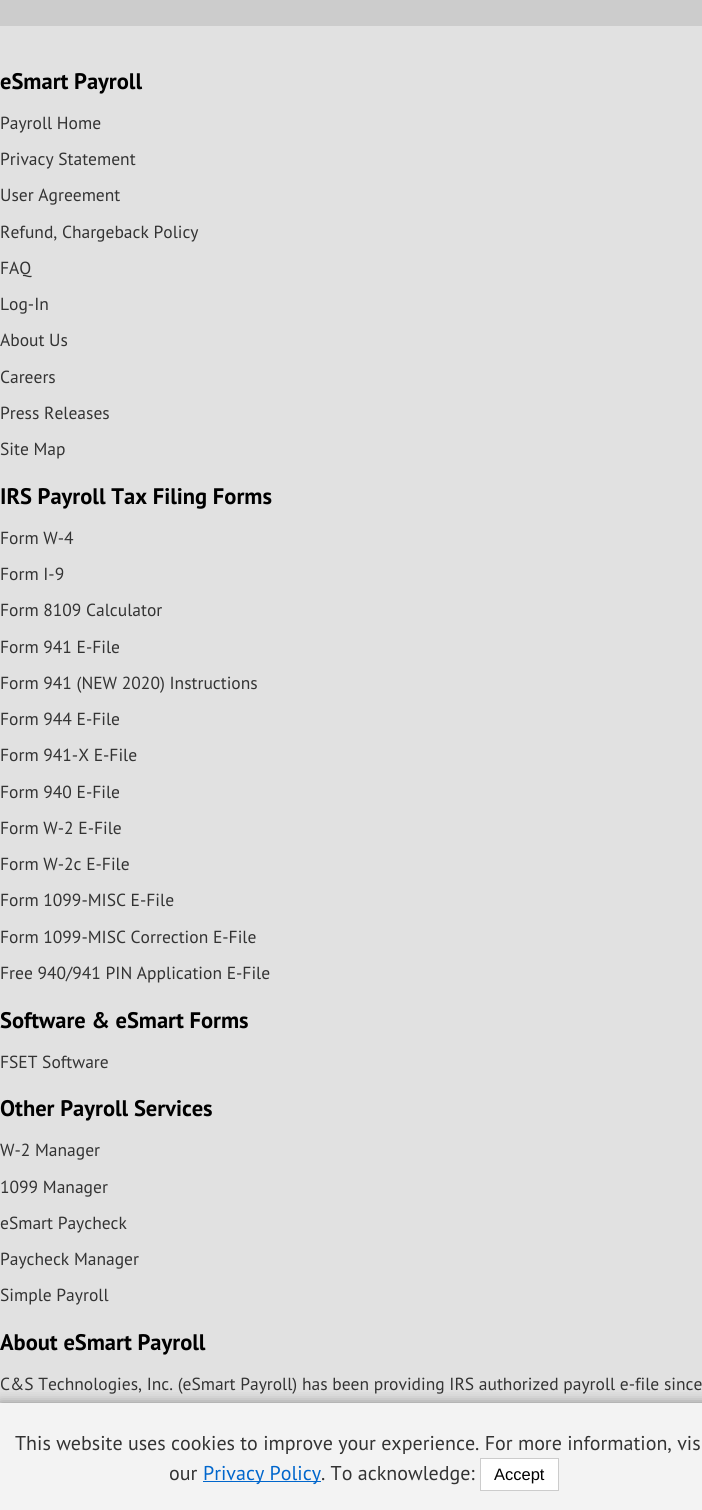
#include <cairo/cairo.h>
#include <math.h>
#include <stddef.h>

typedef struct { double x, y; const char *s; } line_t;
static cairo_t *cr;

static void rgb(unsigned color)
{
	cairo_set_source_rgb(cr, (color >> 16) / 255.0, (color >> 8 & 255) / 255.0, (color & 255) / 255.0);
}

static void rrect(double x, double y, double w, double h, double r)
{
	cairo_new_sub_path(cr);
	cairo_arc(cr, x + w - r, y + h - r, r, 0, M_PI / 2);
	cairo_arc(cr, x + r, y + h - r, r, M_PI / 2, M_PI);
	cairo_arc(cr, x + r, y + r, r, M_PI, 1.5 * M_PI);
	cairo_arc(cr, x + w - r, y + r, r, 1.5 * M_PI, 2 * M_PI);
	cairo_close_path(cr);
}

static void soft_shadow(double x, double y, double w, double h, double r, double blur, double alpha)
{
	cairo_push_group_with_content(cr, CAIRO_CONTENT_ALPHA);
	cairo_set_operator(cr, CAIRO_OPERATOR_SOURCE);
	for (int i = 15; i >= -15 && fmin(w, h) + blur * i / 3 > 0; i -= 2) {
		double e = blur * i / 6;
		cairo_set_source_rgba(cr, 0, 0, 0, alpha * erfc((i - 1) / 8.5) / 2);
		rrect(x - e, y - e, w + 2 * e, h + 2 * e, fmax(0, fmin(r + e + blur * .6, fmin(w, h) / 2 + e)));
		cairo_fill(cr);
	}
	cairo_pattern_t *soft = cairo_pop_group(cr);
	cairo_mask(cr, soft);
	cairo_pattern_destroy(soft);
}

int main(void) {
	cairo_surface_t *surface = cairo_image_surface_create(CAIRO_FORMAT_RGB24, 702, 1510);
	cr = cairo_create(surface);
	cairo_font_options_t *options = cairo_font_options_create();
	cairo_font_options_set_hint_metrics(options, CAIRO_HINT_METRICS_OFF);
	cairo_font_options_set_hint_style(options, CAIRO_HINT_STYLE_NONE);
	cairo_set_font_options(cr, options);
	cairo_set_miter_limit(cr, 4);
	rgb(0xe1e1e1);
	cairo_paint(cr);
	rgb(0xcccccc);
	cairo_rectangle(cr, 0, 0, 702, 26);
	cairo_fill(cr);
	rgb(0x888888);
	soft_shadow(0, 1403, 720, 107, 0, 6, 1);
	rgb(0xf3f3f3);
	cairo_rectangle(cr, 0, 1403, 702, 107);
	cairo_fill(cr);
	rgb(0x0066cc);
	cairo_rectangle(cr, 203, 1481, 118, 1);
	cairo_fill(cr);
	rgb(0xffffff);
	cairo_rectangle(cr, 480.5, 1458.5, 78, 32);
	cairo_fill_preserve(cr);
	rgb(0xcccccc);
	cairo_set_line_width(cr, 1);
	cairo_stroke(cr);
	cairo_select_font_face(cr, "PT Sans", CAIRO_FONT_SLANT_NORMAL, CAIRO_FONT_WEIGHT_BOLD);
	cairo_set_font_size(cr, 22.5);
	rgb(0x000000);
	cairo_move_to(cr, 0, 89);
	cairo_show_text(cr, "eSmart Payroll");
	cairo_select_font_face(cr, "PT Sans", CAIRO_FONT_SLANT_NORMAL, CAIRO_FONT_WEIGHT_NORMAL);
	cairo_set_font_size(cr, 17.5);
	rgb(0x333333);
	{
		static const line_t items[] = {
			{0, 129, "Payroll Home"},
			{0, 165, "Privacy Statement"},
			{0, 201, "User Agreement"},
			{0, 238, "Refund, Chargeback Policy"},
			{0, 274, "FAQ"},
			{0, 310, "Log-In"},
			{0, 346, "About Us"},
			{0, 383, "Careers"},
			{0, 419, "Press Releases"},
			{0, 455, "Site Map"},
		};
		for (size_t i = 0; i < sizeof items / sizeof *items; i++) {
			cairo_move_to(cr, items[i].x, items[i].y);
			cairo_show_text(cr, items[i].s);
		}
	}
	cairo_select_font_face(cr, "PT Sans", CAIRO_FONT_SLANT_NORMAL, CAIRO_FONT_WEIGHT_BOLD);
	cairo_set_font_size(cr, 22.5);
	rgb(0x000000);
	cairo_move_to(cr, 0, 504);
	cairo_show_text(cr, "IRS Payroll Tax Filing Forms");
	cairo_select_font_face(cr, "PT Sans", CAIRO_FONT_SLANT_NORMAL, CAIRO_FONT_WEIGHT_NORMAL);
	cairo_set_font_size(cr, 17.5);
	rgb(0x333333);
	{
		static const line_t items[] = {
			{0, 544, "Form W-4"},
			{0, 580, "Form I-9"},
			{0, 616, "Form 8109 Calculator"},
			{0, 653, "Form 941 E-File"},
			{0, 689, "Form 941 (NEW 2020) Instructions"},
			{0, 725, "Form 944 E-File"},
			{0, 761, "Form 941-X E-File"},
			{0, 798, "Form 940 E-File"},
			{0, 834, "Form W-2 E-File"},
			{0, 870, "Form W-2c E-File"},
			{0, 906, "Form 1099-MISC E-File"},
			{0, 943, "Form 1099-MISC Correction E-File"},
			{0, 979, "Free 940/941 PIN Application E-File"},
		};
		for (size_t i = 0; i < sizeof items / sizeof *items; i++) {
			cairo_move_to(cr, items[i].x, items[i].y);
			cairo_show_text(cr, items[i].s);
		}
	}
	cairo_select_font_face(cr, "PT Sans", CAIRO_FONT_SLANT_NORMAL, CAIRO_FONT_WEIGHT_BOLD);
	cairo_set_font_size(cr, 22.5);
	rgb(0x000000);
	cairo_move_to(cr, 0, 1028);
	cairo_show_text(cr, "Software & eSmart Forms");
	cairo_select_font_face(cr, "PT Sans", CAIRO_FONT_SLANT_NORMAL, CAIRO_FONT_WEIGHT_NORMAL);
	cairo_set_font_size(cr, 17.5);
	rgb(0x333333);
	cairo_move_to(cr, 0, 1068);
	cairo_show_text(cr, "FSET Software");
	cairo_select_font_face(cr, "PT Sans", CAIRO_FONT_SLANT_NORMAL, CAIRO_FONT_WEIGHT_BOLD);
	cairo_set_font_size(cr, 22.5);
	rgb(0x000000);
	cairo_move_to(cr, 0, 1116);
	cairo_show_text(cr, "Other Payroll Services");
	cairo_select_font_face(cr, "PT Sans", CAIRO_FONT_SLANT_NORMAL, CAIRO_FONT_WEIGHT_NORMAL);
	cairo_set_font_size(cr, 17.5);
	rgb(0x333333);
	{
		static const line_t items[] = {
			{0, 1156, "W-2 Manager"},
			{0, 1193, "1099 Manager"},
			{0, 1229, "eSmart Paycheck"},
			{0, 1265, "Paycheck Manager"},
			{0, 1301, "Simple Payroll"},
		};
		for (size_t i = 0; i < sizeof items / sizeof *items; i++) {
			cairo_move_to(cr, items[i].x, items[i].y);
			cairo_show_text(cr, items[i].s);
		}
	}
	cairo_select_font_face(cr, "PT Sans", CAIRO_FONT_SLANT_NORMAL, CAIRO_FONT_WEIGHT_BOLD);
	cairo_set_font_size(cr, 22.5);
	rgb(0x000000);
	cairo_move_to(cr, 0, 1350);
	cairo_show_text(cr, "About eSmart Payroll");
	cairo_select_font_face(cr, "PT Sans", CAIRO_FONT_SLANT_NORMAL, CAIRO_FONT_WEIGHT_NORMAL);
	cairo_set_font_size(cr, 17.5);
	rgb(0x333333);
	cairo_move_to(cr, 0, 1390);
	cairo_show_text(cr, "C&S Technologies, Inc. (eSmart Payroll) has been providing IRS authorized payroll e-file since");
	cairo_set_font_size(cr, 20);
	cairo_move_to(cr, 15, 1450);
	cairo_show_text(cr, "This website uses cookies to improve your experience. For more information, vis");
	cairo_move_to(cr, 169, 1480);
	cairo_show_text(cr, "our");
	rgb(0x0066cc);
	cairo_move_to(cr, 203, 1480);
	cairo_show_text(cr, "Privacy Policy");
	rgb(0x333333);
	cairo_move_to(cr, 321, 1480);
	cairo_show_text(cr, ". To acknowledge:");
	cairo_select_font_face(cr, "Liberation Sans", CAIRO_FONT_SLANT_NORMAL, CAIRO_FONT_WEIGHT_NORMAL);
	cairo_set_font_size(cr, 16.5);
	rgb(0x000000);
	cairo_move_to(cr, 494, 1480);
	cairo_show_text(cr, "Accept");
	cairo_surface_write_to_png(surface, "page.png");
	cairo_font_options_destroy(options);
	cairo_destroy(cr);
	cairo_surface_destroy(surface);
	return 0;
}
